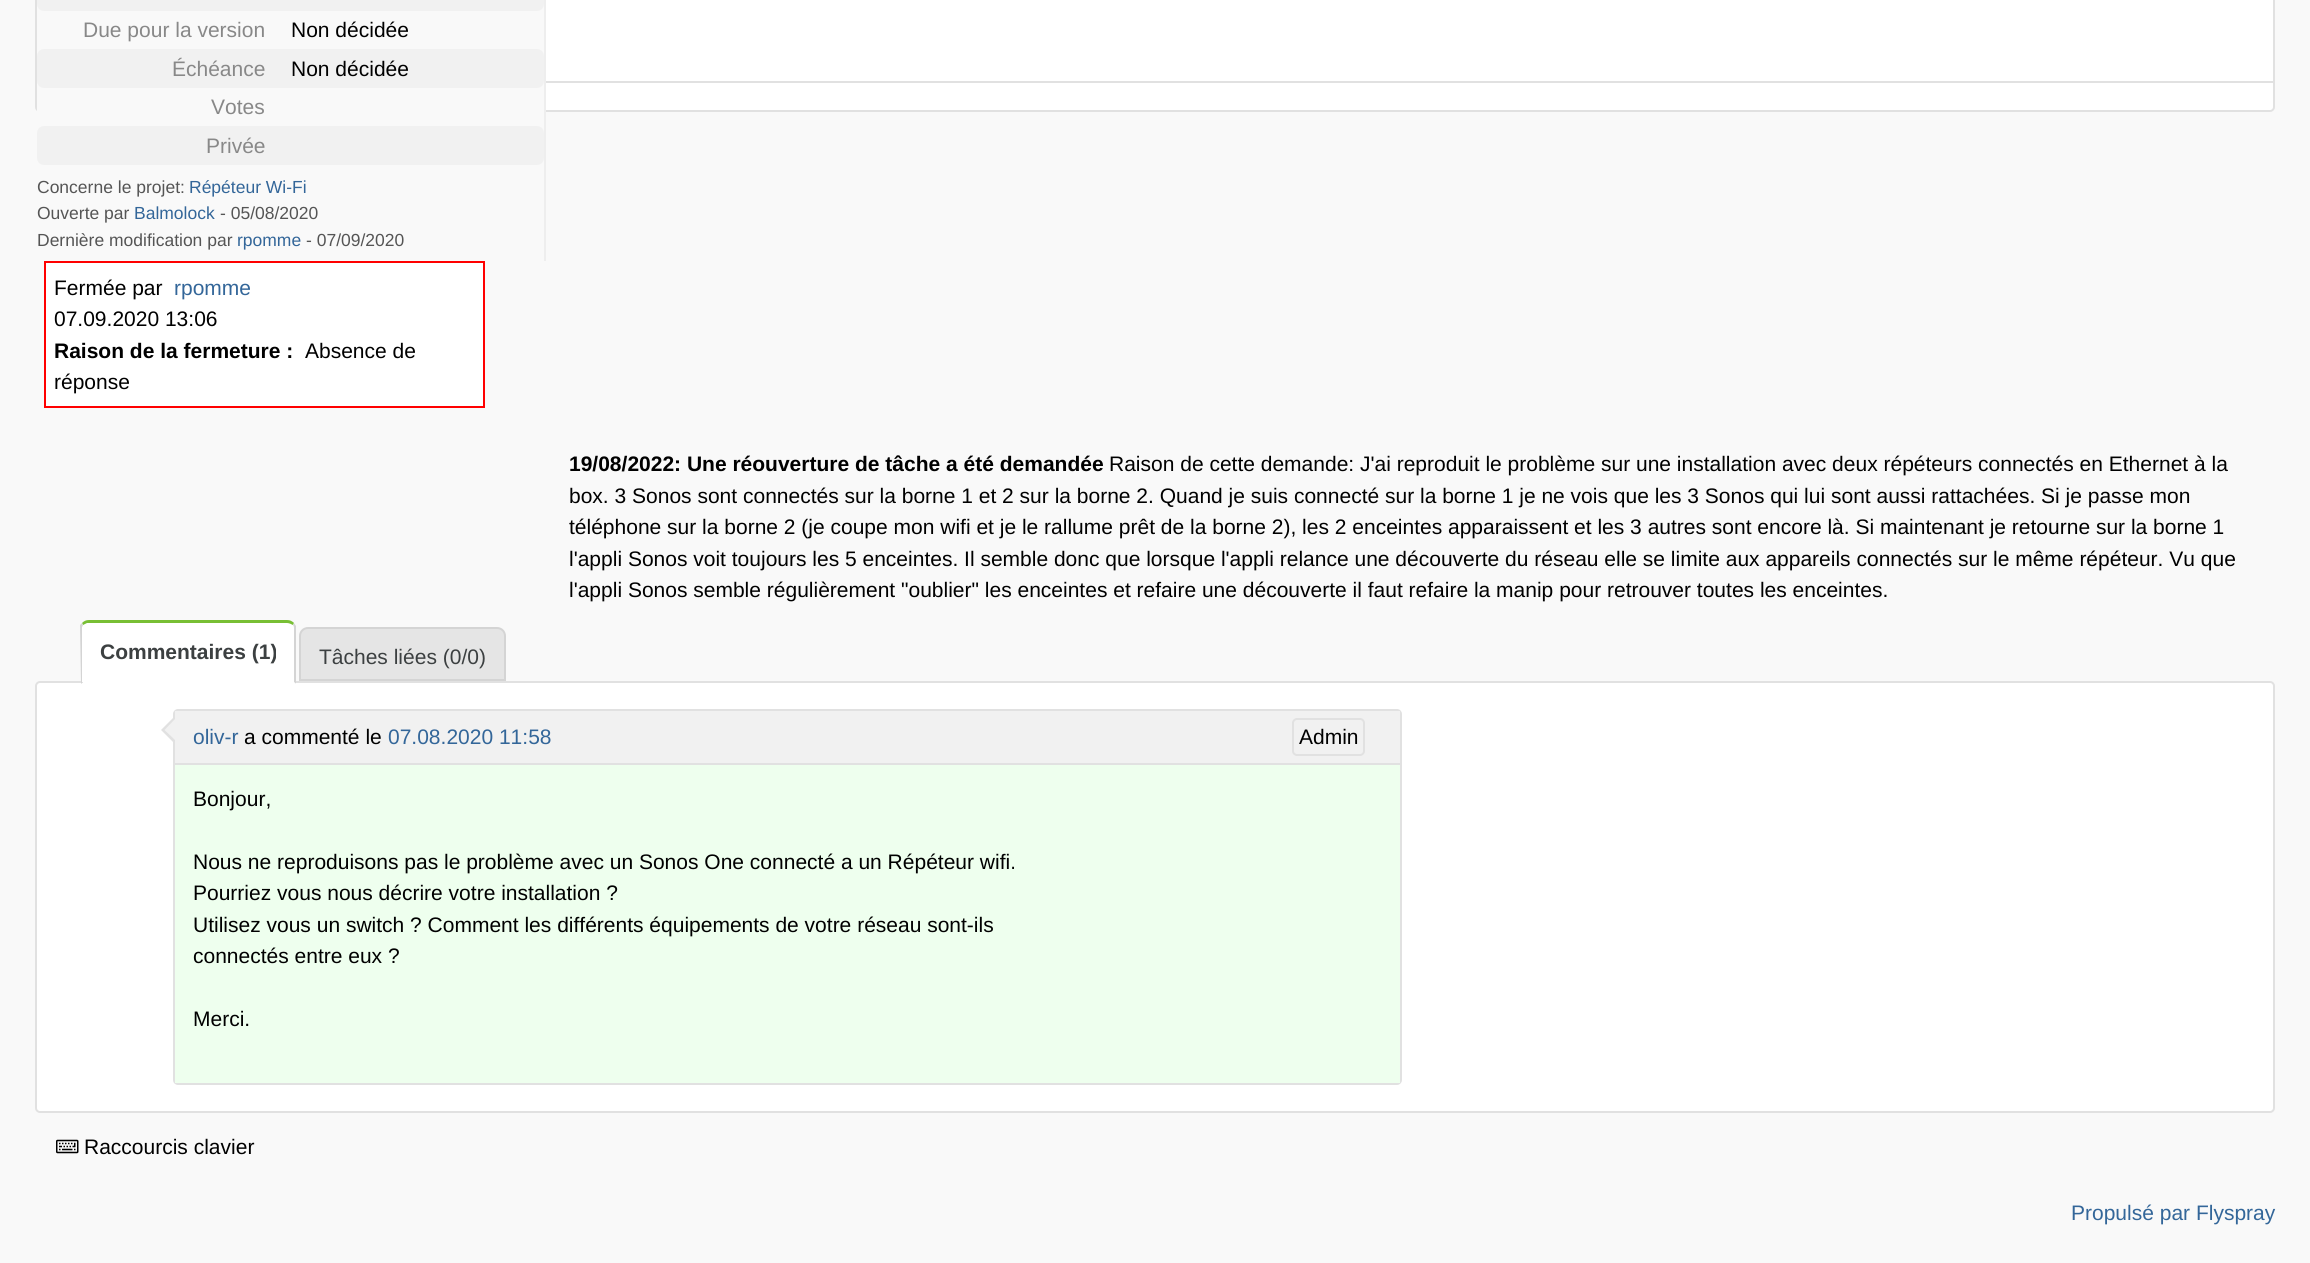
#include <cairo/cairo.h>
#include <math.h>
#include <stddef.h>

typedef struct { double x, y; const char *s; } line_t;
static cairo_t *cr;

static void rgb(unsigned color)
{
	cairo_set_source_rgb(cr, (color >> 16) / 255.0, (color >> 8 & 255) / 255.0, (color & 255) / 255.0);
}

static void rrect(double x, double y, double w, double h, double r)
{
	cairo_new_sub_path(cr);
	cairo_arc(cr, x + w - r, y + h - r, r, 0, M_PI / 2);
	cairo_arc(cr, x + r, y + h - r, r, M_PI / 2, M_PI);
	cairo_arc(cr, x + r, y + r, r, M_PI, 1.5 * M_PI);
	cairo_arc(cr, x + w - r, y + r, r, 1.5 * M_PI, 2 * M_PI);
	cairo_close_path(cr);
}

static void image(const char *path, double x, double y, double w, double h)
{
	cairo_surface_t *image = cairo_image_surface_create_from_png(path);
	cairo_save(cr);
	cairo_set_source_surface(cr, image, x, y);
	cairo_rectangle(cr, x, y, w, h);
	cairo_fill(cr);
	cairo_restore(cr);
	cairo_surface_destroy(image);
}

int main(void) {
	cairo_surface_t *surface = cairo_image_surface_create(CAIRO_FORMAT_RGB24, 2310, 1263);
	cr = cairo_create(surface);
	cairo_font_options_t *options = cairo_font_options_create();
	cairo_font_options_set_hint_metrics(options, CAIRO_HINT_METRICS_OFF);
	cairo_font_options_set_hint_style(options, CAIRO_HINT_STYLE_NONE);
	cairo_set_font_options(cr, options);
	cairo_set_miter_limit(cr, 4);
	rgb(0xf9f9f9);
	cairo_paint(cr);
	rgb(0xffffff);
	rrect(36, -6, 2238, 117, 4);
	cairo_fill_preserve(cr);
	rgb(0xe1e1e1);
	cairo_stroke(cr);
	rgb(0xf9f9f9);
	cairo_rectangle(cr, 37, 4, 507, 108);
	cairo_fill(cr);
	rgb(0xeeeeee);
	cairo_rectangle(cr, 544, 0, 2, 261);
	cairo_fill(cr);
	rgb(0xf1f1f1);
	rrect(37, -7, 507, 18, 7);
	cairo_fill(cr);
	rrect(37, 49, 507, 39, 7);
	cairo_fill(cr);
	rrect(37, 126, 507, 39, 7);
	cairo_fill(cr);
	rgb(0xe1e1e1);
	cairo_rectangle(cr, 546, 81, 1727, 2);
	cairo_fill(cr);
	rgb(0xffffff);
	cairo_rectangle(cr, 45, 262, 439, 145);
	cairo_fill_preserve(cr);
	rgb(0xff0000);
	cairo_stroke(cr);
	rgb(0xffffff);
	rrect(36, 682, 2238, 430, 4);
	cairo_fill_preserve(cr);
	rgb(0xe1e1e1);
	cairo_stroke(cr);
	rgb(0xffffff);
	cairo_new_path(cr);
	cairo_move_to(cr, 89, 623);
	cairo_line_to(cr, 287, 623);
	cairo_curve_to(cr, 291, 623, 294, 625, 294, 628);
	cairo_line_to(cr, 294, 682);
	cairo_line_to(cr, 82, 682);
	cairo_line_to(cr, 82, 628);
	cairo_curve_to(cr, 82, 625, 85, 623, 89, 623);
	cairo_close_path(cr);
	cairo_fill(cr);
	rgb(0x78bf34);
	cairo_new_path(cr);
	cairo_move_to(cr, 89, 620);
	cairo_curve_to(cr, 86, 620, 84, 621, 82, 623);
	cairo_line_to(cr, 83, 625);
	cairo_line_to(cr, 87, 623);
	cairo_line_to(cr, 287, 623);
	cairo_curve_to(cr, 289, 623, 291, 624, 293, 625);
	cairo_line_to(cr, 294, 623);
	cairo_curve_to(cr, 292, 621, 290, 620, 287, 620);
	cairo_close_path(cr);
	cairo_fill(cr);
	rgb(0xd4d4d4);
	cairo_new_path(cr);
	cairo_move_to(cr, 296, 684);
	cairo_line_to(cr, 294, 682);
	cairo_line_to(cr, 294, 628);
	cairo_curve_to(cr, 294, 627, 294, 626, 293, 625);
	cairo_line_to(cr, 294, 623);
	cairo_line_to(cr, 296, 626);
	cairo_close_path(cr);
	cairo_fill(cr);
	rgb(0xffffff);
	cairo_new_path(cr);
	cairo_move_to(cr, 296, 684);
	cairo_line_to(cr, 81, 684);
	cairo_line_to(cr, 83, 682);
	cairo_line_to(cr, 294, 682);
	cairo_close_path(cr);
	cairo_fill(cr);
	rgb(0xd4d4d4);
	cairo_new_path(cr);
	cairo_move_to(cr, 80, 625);
	cairo_line_to(cr, 82, 623);
	cairo_line_to(cr, 83, 625);
	cairo_line_to(cr, 82, 627);
	cairo_line_to(cr, 82, 682);
	cairo_line_to(cr, 83, 682);
	cairo_line_to(cr, 81, 684);
	cairo_close_path(cr);
	cairo_fill(cr);
	rgb(0xe5e5e5);
	cairo_new_path(cr);
	cairo_move_to(cr, 308, 628);
	cairo_line_to(cr, 497, 628);
	cairo_curve_to(cr, 501.5, 628, 505, 631.5, 505, 636);
	cairo_line_to(cr, 505, 680);
	cairo_line_to(cr, 300, 680);
	cairo_line_to(cr, 300, 636);
	cairo_curve_to(cr, 300, 631.5, 303.5, 628, 308, 628);
	cairo_close_path(cr);
	cairo_fill_preserve(cr);
	rgb(0xd4d4d4);
	cairo_stroke(cr);
	rrect(174, 710, 1227, 374, 4);
	rgb(0xe1e1e1);
	cairo_stroke(cr);
	cairo_new_path(cr);
	cairo_move_to(cr, 175, 716);
	cairo_line_to(cr, 175, 744);
	cairo_line_to(cr, 161, 730);
	cairo_close_path(cr);
	cairo_fill(cr);
	rgb(0xf1f1f1);
	cairo_new_path(cr);
	cairo_move_to(cr, 175, 719);
	cairo_line_to(cr, 175, 740);
	cairo_line_to(cr, 164.5, 730);
	cairo_close_path(cr);
	cairo_fill(cr);
	cairo_rectangle(cr, 175, 711, 1225, 52);
	cairo_fill(cr);
	rgb(0xe1e1e1);
	cairo_rectangle(cr, 175, 763, 1225, 2);
	cairo_fill(cr);
	rrect(1293, 719, 71, 36, 4);
	cairo_stroke(cr);
	rgb(0xeeffee);
	cairo_rectangle(cr, 175, 765, 1225, 318);
	cairo_fill(cr);
	image("img/1.png", 56, 1139, 23, 15);
	cairo_select_font_face(cr, "Liberation Sans", CAIRO_FONT_SLANT_NORMAL, CAIRO_FONT_WEIGHT_NORMAL);
	cairo_set_font_size(cr, 21);
	rgb(0x888888);
	cairo_move_to(cr, 83, 37);
	cairo_show_text(cr, "Due pour la version");
	rgb(0x000000);
	cairo_move_to(cr, 291, 37);
	cairo_show_text(cr, "Non décidée");
	rgb(0x888888);
	cairo_move_to(cr, 172, 76);
	cairo_show_text(cr, "Échéance");
	rgb(0x000000);
	cairo_move_to(cr, 291, 76);
	cairo_show_text(cr, "Non décidée");
	rgb(0x888888);
	cairo_move_to(cr, 211, 114);
	cairo_show_text(cr, "Votes");
	cairo_move_to(cr, 206, 153);
	cairo_show_text(cr, "Privée");
	cairo_set_font_size(cr, 17.5);
	rgb(0x555555);
	cairo_move_to(cr, 37, 193);
	cairo_show_text(cr, "Concerne le projet:");
	rgb(0x336699);
	cairo_move_to(cr, 189, 193);
	cairo_show_text(cr, "Répéteur Wi-Fi");
	rgb(0x555555);
	cairo_move_to(cr, 37, 219);
	cairo_show_text(cr, "Ouverte par");
	rgb(0x336699);
	cairo_move_to(cr, 134, 219);
	cairo_show_text(cr, "Balmolock");
	rgb(0x555555);
	cairo_move_to(cr, 220, 219);
	cairo_show_text(cr, "- 05/08/2020");
	cairo_move_to(cr, 37, 246);
	cairo_show_text(cr, "Dernière modification par");
	rgb(0x336699);
	cairo_move_to(cr, 237, 246);
	cairo_show_text(cr, "rpomme");
	rgb(0x555555);
	cairo_move_to(cr, 306, 246);
	cairo_show_text(cr, "- 07/09/2020");
	cairo_set_font_size(cr, 21);
	rgb(0x000000);
	cairo_move_to(cr, 54, 295);
	cairo_show_text(cr, "Fermée par");
	rgb(0x336699);
	cairo_move_to(cr, 174, 295);
	cairo_show_text(cr, "rpomme");
	rgb(0x000000);
	cairo_move_to(cr, 54, 326);
	cairo_show_text(cr, "07.09.2020 13:06");
	cairo_select_font_face(cr, "Liberation Sans", CAIRO_FONT_SLANT_NORMAL, CAIRO_FONT_WEIGHT_BOLD);
	cairo_move_to(cr, 54, 358);
	cairo_show_text(cr, "Raison de la fermeture :");
	cairo_select_font_face(cr, "Liberation Sans", CAIRO_FONT_SLANT_NORMAL, CAIRO_FONT_WEIGHT_NORMAL);
	cairo_move_to(cr, 305, 358);
	cairo_show_text(cr, "Absence de");
	cairo_move_to(cr, 54, 389);
	cairo_show_text(cr, "réponse");
	cairo_select_font_face(cr, "Liberation Sans", CAIRO_FONT_SLANT_NORMAL, CAIRO_FONT_WEIGHT_BOLD);
	cairo_move_to(cr, 569, 471);
	cairo_show_text(cr, "19/08/2022: Une réouverture de tâche a été demandée");
	cairo_select_font_face(cr, "Liberation Sans", CAIRO_FONT_SLANT_NORMAL, CAIRO_FONT_WEIGHT_NORMAL);
	{
		static const line_t items[] = {
			{1109, 471, "Raison de cette demande: J'ai reproduit le problème sur une installation avec deux répéteurs connectés en Ethernet à la"},
			{569, 503, "box. 3 Sonos sont connectés sur la borne 1 et 2 sur la borne 2. Quand je suis connecté sur la borne 1 je ne vois que les 3 Sonos qui lui sont aussi rattachées. Si je passe mon"},
			{569, 534, "téléphone sur la borne 2 (je coupe mon wifi et je le rallume prêt de la borne 2), les 2 enceintes apparaissent et les 3 autres sont encore là. Si maintenant je retourne sur la borne 1"},
			{569, 566, "l'appli Sonos voit toujours les 5 enceintes. Il semble donc que lorsque l'appli relance une découverte du réseau elle se limite aux appareils connectés sur le même répéteur. Vu que"},
			{569, 597, "l'appli Sonos semble régulièrement \"oublier\" les enceintes et refaire une découverte il faut refaire la manip pour retrouver toutes les enceintes."},
		};
		for (size_t i = 0; i < sizeof items / sizeof *items; i++) {
			cairo_move_to(cr, items[i].x, items[i].y);
			cairo_show_text(cr, items[i].s);
		}
	}
	cairo_select_font_face(cr, "Liberation Sans", CAIRO_FONT_SLANT_NORMAL, CAIRO_FONT_WEIGHT_BOLD);
	rgb(0x3c4041);
	cairo_move_to(cr, 100, 659);
	cairo_show_text(cr, "Commentaires (1)");
	cairo_select_font_face(cr, "Liberation Sans", CAIRO_FONT_SLANT_NORMAL, CAIRO_FONT_WEIGHT_NORMAL);
	cairo_move_to(cr, 319, 664);
	cairo_show_text(cr, "Tâches liées (0/0)");
	rgb(0x336699);
	cairo_move_to(cr, 193, 744);
	cairo_show_text(cr, "oliv-r");
	rgb(0x000000);
	cairo_move_to(cr, 244, 744);
	cairo_show_text(cr, "a commenté le");
	rgb(0x336699);
	cairo_move_to(cr, 388, 744);
	cairo_show_text(cr, "07.08.2020 11:58");
	rgb(0x000000);
	{
		static const line_t items[] = {
			{1299, 744, "Admin"},
			{193, 806, "Bonjour,"},
			{193, 869, "Nous ne reproduisons pas le problème avec un Sonos One connecté a un Répéteur wifi."},
			{193, 900, "Pourriez vous nous décrire votre installation ?"},
			{193, 932, "Utilisez vous un switch ? Comment les différents équipements de votre réseau sont-ils"},
			{193, 963, "connectés entre eux ?"},
			{193, 1026, "Merci."},
			{84, 1154, "Raccourcis clavier"},
		};
		for (size_t i = 0; i < sizeof items / sizeof *items; i++) {
			cairo_move_to(cr, items[i].x, items[i].y);
			cairo_show_text(cr, items[i].s);
		}
	}
	rgb(0x336699);
	cairo_move_to(cr, 2071, 1220);
	cairo_show_text(cr, "Propulsé par Flyspray");
	cairo_surface_write_to_png(surface, "page.png");
	cairo_font_options_destroy(options);
	cairo_destroy(cr);
	cairo_surface_destroy(surface);
	return 0;
}
